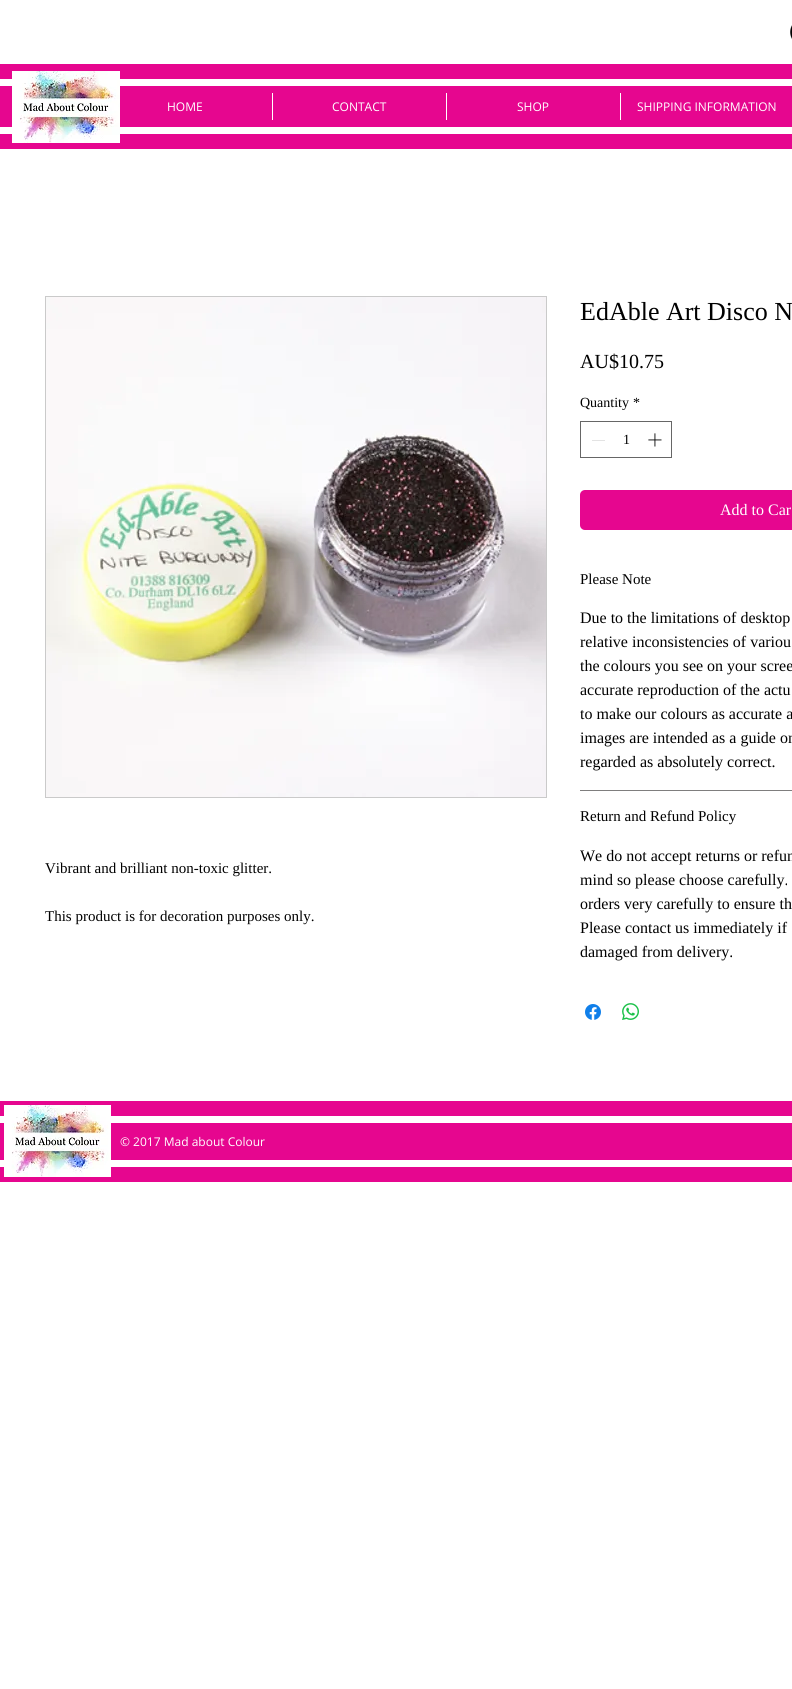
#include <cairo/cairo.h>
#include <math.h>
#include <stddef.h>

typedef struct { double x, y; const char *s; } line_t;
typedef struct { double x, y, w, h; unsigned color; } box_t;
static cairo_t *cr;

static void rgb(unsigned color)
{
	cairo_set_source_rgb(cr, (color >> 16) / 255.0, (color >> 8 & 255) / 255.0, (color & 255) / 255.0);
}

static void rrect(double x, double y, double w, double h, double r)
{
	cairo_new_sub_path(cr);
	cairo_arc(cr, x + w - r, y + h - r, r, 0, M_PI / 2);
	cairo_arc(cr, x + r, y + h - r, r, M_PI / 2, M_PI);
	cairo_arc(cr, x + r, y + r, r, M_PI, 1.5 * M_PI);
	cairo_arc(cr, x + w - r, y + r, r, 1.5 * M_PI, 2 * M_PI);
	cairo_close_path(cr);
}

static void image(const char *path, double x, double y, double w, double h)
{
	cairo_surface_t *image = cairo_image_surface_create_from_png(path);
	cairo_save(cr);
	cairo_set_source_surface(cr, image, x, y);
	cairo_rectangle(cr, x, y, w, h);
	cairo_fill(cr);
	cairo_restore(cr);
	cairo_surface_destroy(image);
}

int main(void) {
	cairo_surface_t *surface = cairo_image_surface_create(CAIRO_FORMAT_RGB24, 792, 1689);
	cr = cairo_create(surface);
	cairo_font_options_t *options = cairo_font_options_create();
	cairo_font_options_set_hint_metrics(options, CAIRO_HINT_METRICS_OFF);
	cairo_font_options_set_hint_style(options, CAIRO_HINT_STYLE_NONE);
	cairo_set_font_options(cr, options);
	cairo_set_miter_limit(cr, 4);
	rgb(0xffffff);
	cairo_paint(cr);
	image("img/1.png", 790, 25, 2, 14);
	{
		static const box_t items[] = {
			{0, 64, 792, 85, 0xe6068f},
			{0, 79, 792, 7, 0xffffff},
			{0, 127, 792, 7, 0xffffff},
		};
		for (size_t i = 0; i < sizeof items / sizeof *items; i++) {
			rgb(items[i].color);
			cairo_rectangle(cr, items[i].x, items[i].y, items[i].w, items[i].h);
			cairo_fill(cr);
		}
	}
	image("img/2.png", 12, 71, 108, 72);
	{
		static const box_t items[] = {
			{272, 93, 1, 27, 0xffffff},
			{446, 93, 1, 27, 0xffffff},
			{620, 93, 1, 27, 0xffffff},
		};
		for (size_t i = 0; i < sizeof items / sizeof *items; i++) {
			rgb(items[i].color);
			cairo_rectangle(cr, items[i].x, items[i].y, items[i].w, items[i].h);
			cairo_fill(cr);
		}
	}
	cairo_rectangle(cr, 45.5, 296.5, 501, 501);
	rgb(0xcacaca);
	cairo_set_line_width(cr, 1);
	cairo_stroke(cr);
	image("img/3.png", 46, 297, 500, 500);
	cairo_rectangle(cr, 580.5, 421.5, 91, 36);
	rgb(0x666666);
	cairo_stroke(cr);
	rgb(0xe3e3e3);
	cairo_rectangle(cr, 592, 440, 13, 1);
	cairo_fill(cr);
	image("img/4.png", 648, 433, 14, 14);
	rgb(0xe6068f);
	rrect(580, 490, 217, 40, 5);
	cairo_fill(cr);
	rgb(0x7f7e7e);
	cairo_rectangle(cr, 580, 790, 212, 1);
	cairo_fill(cr);
	image("img/5.png", 585, 1004, 16, 16);
	image("img/6.png", 622, 1003, 17, 17);
	{
		static const box_t items[] = {
			{0, 1101, 792, 81, 0xe6068f},
			{0, 1116, 792, 7, 0xffffff},
			{0, 1160, 792, 7, 0xffffff},
		};
		for (size_t i = 0; i < sizeof items / sizeof *items; i++) {
			rgb(items[i].color);
			cairo_rectangle(cr, items[i].x, items[i].y, items[i].w, items[i].h);
			cairo_fill(cr);
		}
	}
	image("img/7.png", 4, 1105, 107, 72);
	cairo_select_font_face(cr, "Open Sans", CAIRO_FONT_SLANT_NORMAL, CAIRO_FONT_WEIGHT_NORMAL);
	cairo_set_font_size(cr, 12);
	{
		static const line_t items[] = {
			{167, 111, "HOME"},
			{332, 111, "CONTACT"},
			{517, 111, "SHOP"},
			{637, 111, "SHIPPING INFORMATION"},
		};
		for (size_t i = 0; i < sizeof items / sizeof *items; i++) {
			cairo_move_to(cr, items[i].x, items[i].y);
			cairo_show_text(cr, items[i].s);
		}
	}
	cairo_select_font_face(cr, "Liberation Serif", CAIRO_FONT_SLANT_NORMAL, CAIRO_FONT_WEIGHT_NORMAL);
	cairo_set_font_size(cr, 15);
	rgb(0x000000);
	cairo_move_to(cr, 45, 873);
	cairo_show_text(cr, "Vibrant and brilliant non-toxic glitter.");
	cairo_move_to(cr, 45, 921);
	cairo_show_text(cr, "This product is for decoration purposes only.");
	cairo_set_font_size(cr, 26);
	cairo_move_to(cr, 580, 320);
	cairo_show_text(cr, "EdAble Art Disco N");
	cairo_set_font_size(cr, 20);
	cairo_move_to(cr, 580, 368);
	cairo_show_text(cr, "AU$10.75");
	cairo_set_font_size(cr, 14);
	{
		static const line_t items[] = {
			{580, 407, "Quantity"},
			{633, 407, "*"},
			{623, 444, "1"},
		};
		for (size_t i = 0; i < sizeof items / sizeof *items; i++) {
			cairo_move_to(cr, items[i].x, items[i].y);
			cairo_show_text(cr, items[i].s);
		}
	}
	cairo_set_font_size(cr, 16);
	rgb(0xffffff);
	cairo_move_to(cr, 720, 515);
	cairo_show_text(cr, "Add to Car");
	cairo_set_font_size(cr, 15);
	rgb(0x000000);
	cairo_move_to(cr, 580, 584);
	cairo_show_text(cr, "Please Note");
	cairo_set_font_size(cr, 16);
	{
		static const line_t items[] = {
			{580, 623, "Due to the limitations of desktop"},
			{580, 647, "relative inconsistencies of variou"},
			{580, 671, "the colours you see on your scree"},
			{580, 695, "accurate reproduction of the actu"},
			{580, 719, "to make our colours as accurate a"},
			{580, 743, "images are intended as a guide on"},
			{580, 767, "regarded as absolutely correct."},
		};
		for (size_t i = 0; i < sizeof items / sizeof *items; i++) {
			cairo_move_to(cr, items[i].x, items[i].y);
			cairo_show_text(cr, items[i].s);
		}
	}
	cairo_set_font_size(cr, 15);
	cairo_move_to(cr, 580, 821);
	cairo_show_text(cr, "Return and Refund Policy");
	cairo_set_font_size(cr, 16);
	{
		static const line_t items[] = {
			{580, 861, "We do not accept returns or refun"},
			{580, 885, "mind so please choose carefully."},
			{580, 909, "orders very carefully to ensure th"},
			{580, 933, "Please contact us immediately if"},
			{580, 957, "damaged from delivery."},
		};
		for (size_t i = 0; i < sizeof items / sizeof *items; i++) {
			cairo_move_to(cr, items[i].x, items[i].y);
			cairo_show_text(cr, items[i].s);
		}
	}
	cairo_select_font_face(cr, "Open Sans", CAIRO_FONT_SLANT_NORMAL, CAIRO_FONT_WEIGHT_NORMAL);
	cairo_set_font_size(cr, 12);
	rgb(0xffffff);
	cairo_move_to(cr, 120, 1146);
	cairo_show_text(cr, "© 2017 Mad about Colour");
	cairo_surface_write_to_png(surface, "page.png");
	cairo_font_options_destroy(options);
	cairo_destroy(cr);
	cairo_surface_destroy(surface);
	return 0;
}
